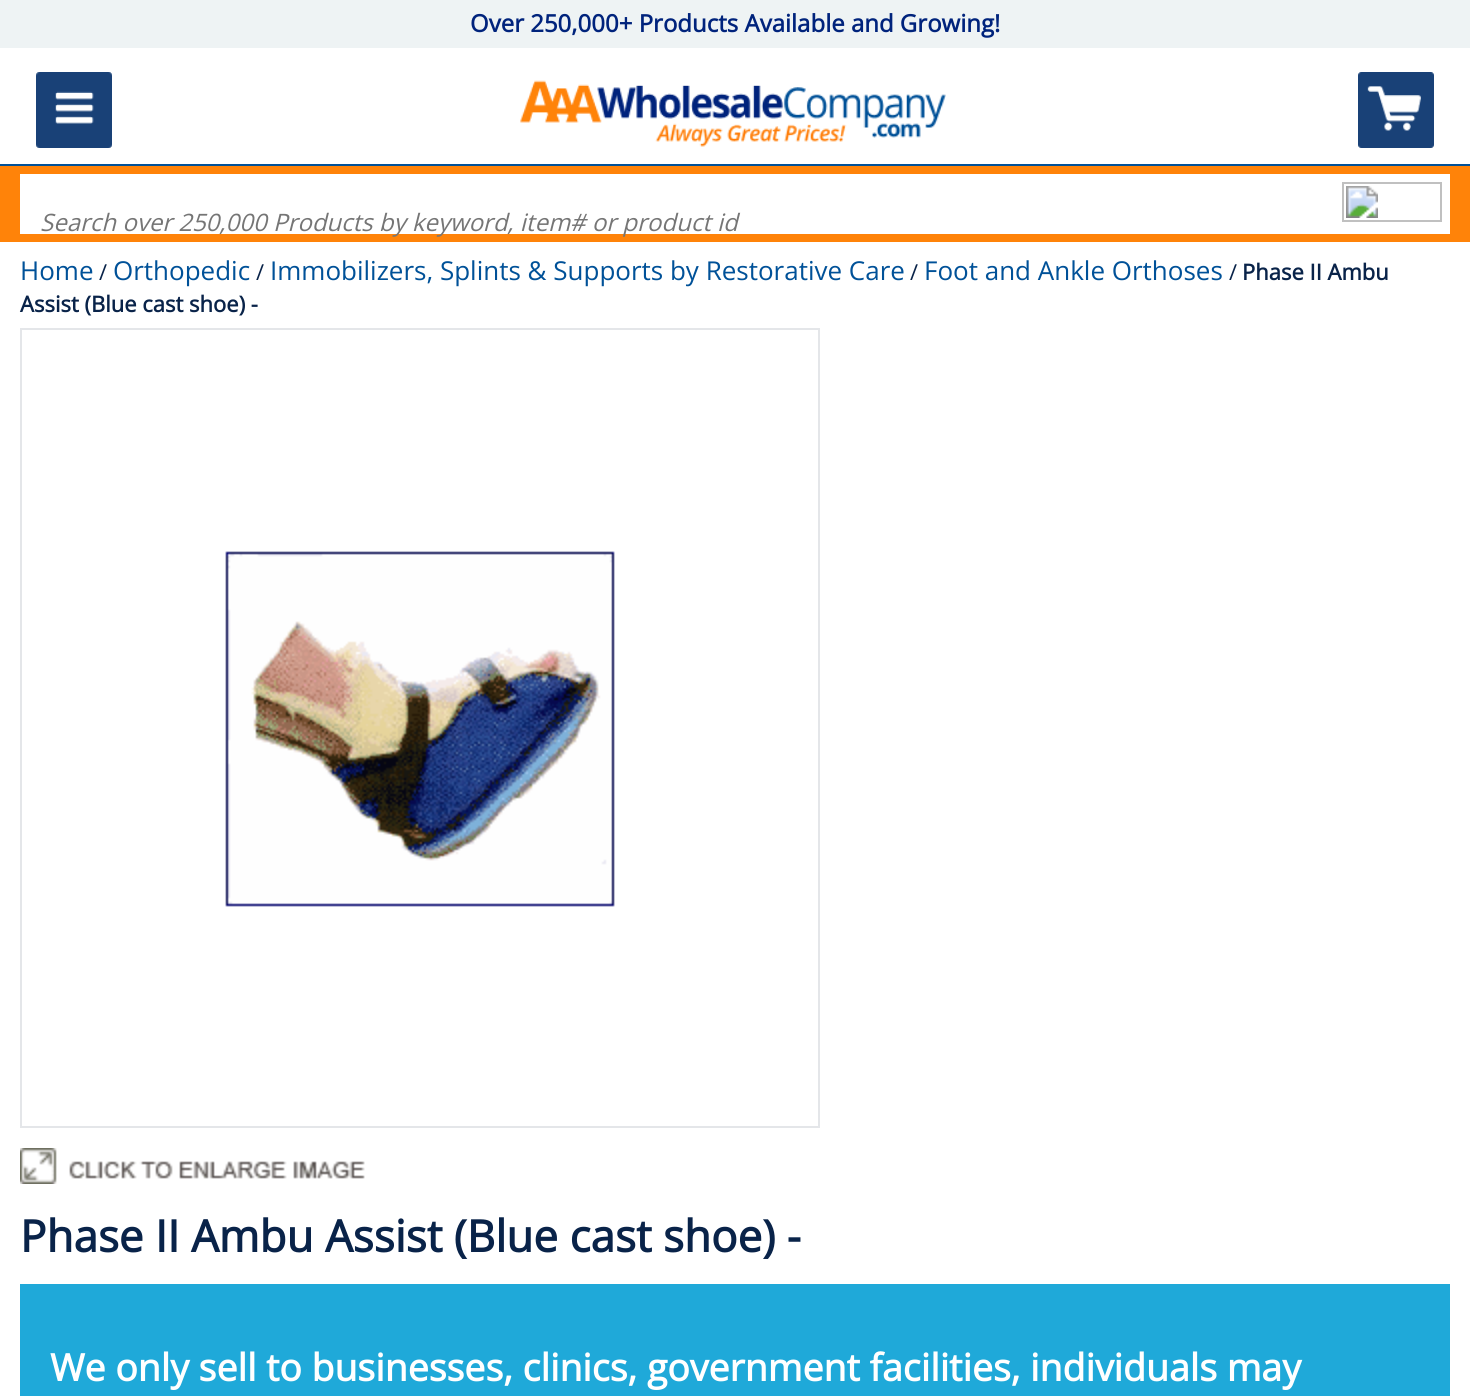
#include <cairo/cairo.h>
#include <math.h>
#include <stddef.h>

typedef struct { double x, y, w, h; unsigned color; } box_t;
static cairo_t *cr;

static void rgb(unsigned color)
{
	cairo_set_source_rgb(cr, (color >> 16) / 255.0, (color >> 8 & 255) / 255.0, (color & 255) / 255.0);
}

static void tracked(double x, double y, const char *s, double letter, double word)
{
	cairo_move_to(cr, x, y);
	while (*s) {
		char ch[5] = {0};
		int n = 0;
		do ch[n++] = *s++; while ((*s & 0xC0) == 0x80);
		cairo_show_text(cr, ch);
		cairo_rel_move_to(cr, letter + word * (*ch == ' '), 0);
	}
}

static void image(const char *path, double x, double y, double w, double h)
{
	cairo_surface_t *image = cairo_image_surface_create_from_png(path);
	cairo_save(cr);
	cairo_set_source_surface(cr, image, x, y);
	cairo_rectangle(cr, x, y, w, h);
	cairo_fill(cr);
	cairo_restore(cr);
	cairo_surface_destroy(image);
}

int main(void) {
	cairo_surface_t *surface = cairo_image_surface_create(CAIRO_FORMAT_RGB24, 1470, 1396);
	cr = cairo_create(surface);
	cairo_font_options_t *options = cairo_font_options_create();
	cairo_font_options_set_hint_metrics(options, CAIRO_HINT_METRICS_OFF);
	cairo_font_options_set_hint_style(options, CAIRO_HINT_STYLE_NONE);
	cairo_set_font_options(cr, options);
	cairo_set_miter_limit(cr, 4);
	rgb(0xffffff);
	cairo_paint(cr);
	rgb(0xeef3f4);
	cairo_rectangle(cr, 0, 0, 1470, 48);
	cairo_fill(cr);
	image("img/1.png", 36, 72, 76, 76);
	image("img/2.png", 520, 80, 426, 67);
	image("img/3.png", 1358, 72, 76, 76);
	{
		static const box_t items[] = {
			{0, 164, 1470, 2, 0x005198},
			{20, 166, 1430, 8, 0xff8309},
			{1450, 166, 20, 68, 0xff8309},
			{20, 234, 1450, 8, 0xff8309},
			{0, 166, 20, 76, 0xff8309},
		};
		for (size_t i = 0; i < sizeof items / sizeof *items; i++) {
			rgb(items[i].color);
			cairo_rectangle(cr, items[i].x, items[i].y, items[i].w, items[i].h);
			cairo_fill(cr);
		}
	}
	image("img/4.png", 1342, 182, 100, 40);
	cairo_rectangle(cr, 21, 329, 798, 798);
	rgb(0xe4e6e9);
	cairo_stroke(cr);
	image("img/5.png", 225, 551, 390, 356);
	image("img/6.png", 20, 1148, 345, 36);
	rgb(0x1fa9d9);
	cairo_rectangle(cr, 20, 1284, 1430, 112);
	cairo_fill(cr);
	cairo_select_font_face(cr, "Open Sans", CAIRO_FONT_SLANT_NORMAL, CAIRO_FONT_WEIGHT_BOLD);
	cairo_set_font_size(cr, 24);
	rgb(0x00237c);
	cairo_move_to(cr, 470, 32);
	cairo_show_text(cr, "Over 250,000+ Products Available and Growing!");
	cairo_select_font_face(cr, "Open Sans", CAIRO_FONT_SLANT_ITALIC, CAIRO_FONT_WEIGHT_NORMAL);
	rgb(0x757575);
	cairo_move_to(cr, 40, 231);
	cairo_show_text(cr, "Search over 250,000 Products by keyword, item# or product id");
	cairo_select_font_face(cr, "Open Sans", CAIRO_FONT_SLANT_NORMAL, CAIRO_FONT_WEIGHT_NORMAL);
	cairo_set_font_size(cr, 26);
	rgb(0x005198);
	cairo_move_to(cr, 20, 280);
	cairo_show_text(cr, "Home");
	cairo_set_font_size(cr, 22);
	rgb(0x092349);
	cairo_move_to(cr, 99, 280);
	cairo_show_text(cr, "/");
	cairo_set_font_size(cr, 26);
	rgb(0x005198);
	cairo_move_to(cr, 113, 280);
	cairo_show_text(cr, "Orthopedic");
	cairo_set_font_size(cr, 22);
	rgb(0x092349);
	cairo_move_to(cr, 256, 280);
	cairo_show_text(cr, "/");
	cairo_set_font_size(cr, 26);
	rgb(0x005198);
	cairo_move_to(cr, 270, 280);
	cairo_show_text(cr, "Immobilizers, Splints & Supports by Restorative Care");
	cairo_set_font_size(cr, 22);
	rgb(0x092349);
	cairo_move_to(cr, 910, 280);
	cairo_show_text(cr, "/");
	cairo_set_font_size(cr, 26);
	rgb(0x005198);
	cairo_move_to(cr, 924, 280);
	cairo_show_text(cr, "Foot and Ankle Orthoses");
	cairo_set_font_size(cr, 22);
	rgb(0x092349);
	cairo_move_to(cr, 1229, 280);
	cairo_show_text(cr, "/");
	cairo_select_font_face(cr, "Open Sans", CAIRO_FONT_SLANT_NORMAL, CAIRO_FONT_WEIGHT_BOLD);
	cairo_move_to(cr, 1242, 280);
	cairo_show_text(cr, "Phase II Ambu");
	cairo_move_to(cr, 20, 312);
	cairo_show_text(cr, "Assist (Blue cast shoe) -");
	cairo_set_font_size(cr, 44);
	cairo_move_to(cr, 20, 1252);
	cairo_show_text(cr, "Phase II Ambu Assist (Blue cast shoe) -");
	cairo_set_font_size(cr, 37.45);
	rgb(0xffffff);
	tracked(50, 1381, "We only sell to businesses, clinics, government facilities, individuals may", 0, -0.1);
	cairo_surface_write_to_png(surface, "page.png");
	cairo_font_options_destroy(options);
	cairo_destroy(cr);
	cairo_surface_destroy(surface);
	return 0;
}
